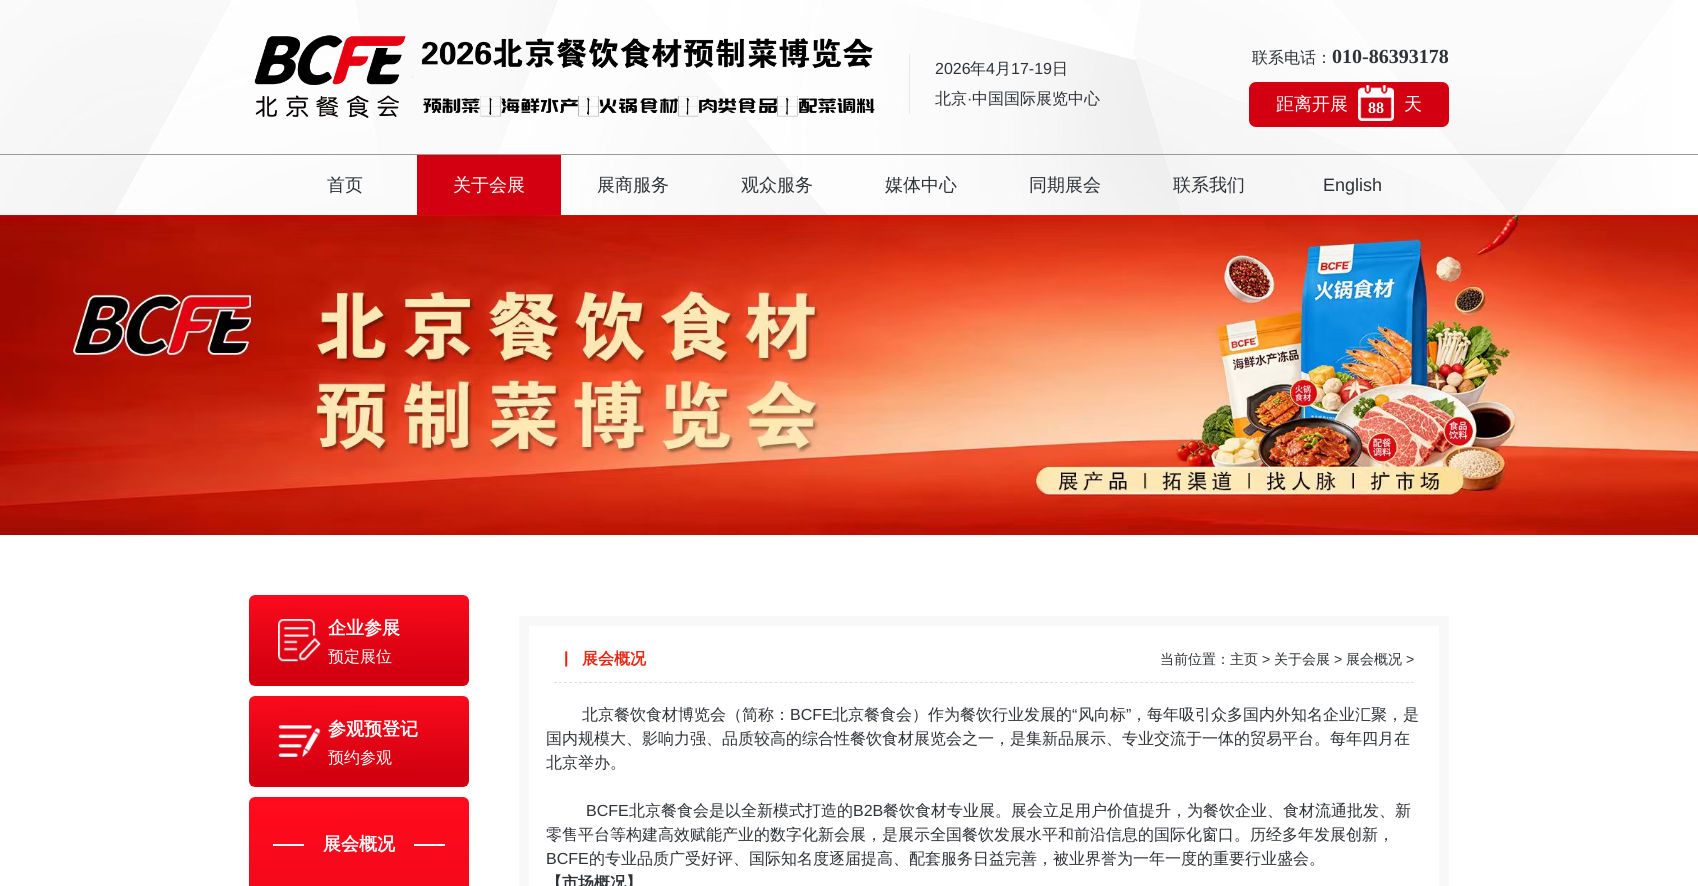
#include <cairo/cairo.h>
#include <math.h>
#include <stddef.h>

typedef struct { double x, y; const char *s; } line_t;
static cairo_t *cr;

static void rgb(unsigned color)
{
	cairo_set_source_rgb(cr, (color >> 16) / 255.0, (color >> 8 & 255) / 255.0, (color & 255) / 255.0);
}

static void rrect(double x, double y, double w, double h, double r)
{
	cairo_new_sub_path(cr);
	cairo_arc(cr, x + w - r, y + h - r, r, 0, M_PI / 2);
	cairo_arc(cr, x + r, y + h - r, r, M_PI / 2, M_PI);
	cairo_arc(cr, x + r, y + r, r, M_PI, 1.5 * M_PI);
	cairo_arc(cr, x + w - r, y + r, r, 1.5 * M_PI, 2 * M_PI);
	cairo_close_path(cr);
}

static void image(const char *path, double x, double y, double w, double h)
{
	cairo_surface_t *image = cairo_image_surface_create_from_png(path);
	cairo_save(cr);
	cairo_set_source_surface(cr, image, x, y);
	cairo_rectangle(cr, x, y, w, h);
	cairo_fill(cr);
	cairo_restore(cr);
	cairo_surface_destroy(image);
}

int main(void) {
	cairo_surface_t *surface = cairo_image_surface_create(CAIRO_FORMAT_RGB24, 1698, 886);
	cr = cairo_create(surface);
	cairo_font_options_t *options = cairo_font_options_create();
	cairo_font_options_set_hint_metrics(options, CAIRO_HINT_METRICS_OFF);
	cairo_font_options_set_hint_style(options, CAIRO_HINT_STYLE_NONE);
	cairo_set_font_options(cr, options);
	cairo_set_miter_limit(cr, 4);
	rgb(0xffffff);
	cairo_paint(cr);
	image("img/1.png", 0, 0, 1673, 215);
	image("img/2.png", 254, 35, 621, 83);
	rgb(0xe8e8e8);
	cairo_rectangle(cr, 909, 54, 1, 60);
	cairo_fill(cr);
	rgb(0xd20010);
	rrect(1249, 82, 200, 45, 7);
	cairo_fill(cr);
	image("img/3.png", 1358, 85, 36, 36);
	rgb(0x999999);
	cairo_rectangle(cr, 0, 154, 1698, 1);
	cairo_fill(cr);
	rgb(0xd20010);
	cairo_rectangle(cr, 417, 155, 144, 60);
	cairo_fill(cr);
	image("img/4.png", 0, 215, 1698, 320);
	image("img/5.png", 249, 595, 220, 91);
	image("img/6.png", 278, 619, 43, 43);
	image("img/7.png", 249, 696, 220, 91);
	image("img/8.png", 278, 725, 43, 32);
	image("img/9.png", 249, 797, 220, 89);
	rgb(0xffffff);
	cairo_rectangle(cr, 273, 844, 31, 2);
	cairo_fill(cr);
	cairo_rectangle(cr, 414, 844, 31, 2);
	cairo_fill(cr);
	cairo_rectangle(cr, 524, 621, 920, 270);
	rgb(0xf8f8f8);
	cairo_set_line_width(cr, 10);
	cairo_stroke(cr);
	cairo_new_path(cr);
	cairo_move_to(cr, 554, 682.5);
	cairo_line_to(cr, 1414, 682.5);
	rgb(0xdedede);
	cairo_set_line_width(cr, 1);
	cairo_set_dash(cr, (double[]){3, 2.01}, 2, 0);
	cairo_stroke(cr);
	cairo_select_font_face(cr, "Liberation Sans", CAIRO_FONT_SLANT_NORMAL, CAIRO_FONT_WEIGHT_NORMAL);
	cairo_set_font_size(cr, 16);
	rgb(0x2e3136);
	cairo_move_to(cr, 935, 74);
	cairo_show_text(cr, "2026");
	cairo_select_font_face(cr, "WenQuanYi Zen Hei Medium", CAIRO_FONT_SLANT_NORMAL, CAIRO_FONT_WEIGHT_NORMAL);
	cairo_move_to(cr, 970, 74);
	cairo_show_text(cr, "年");
	cairo_select_font_face(cr, "Liberation Sans", CAIRO_FONT_SLANT_NORMAL, CAIRO_FONT_WEIGHT_NORMAL);
	cairo_move_to(cr, 986, 74);
	cairo_show_text(cr, "4");
	cairo_select_font_face(cr, "WenQuanYi Zen Hei Medium", CAIRO_FONT_SLANT_NORMAL, CAIRO_FONT_WEIGHT_NORMAL);
	cairo_move_to(cr, 995, 74);
	cairo_show_text(cr, "月");
	cairo_select_font_face(cr, "Liberation Sans", CAIRO_FONT_SLANT_NORMAL, CAIRO_FONT_WEIGHT_NORMAL);
	cairo_move_to(cr, 1011, 74);
	cairo_show_text(cr, "17-19");
	cairo_select_font_face(cr, "WenQuanYi Zen Hei Medium", CAIRO_FONT_SLANT_NORMAL, CAIRO_FONT_WEIGHT_NORMAL);
	cairo_move_to(cr, 1052, 74);
	cairo_show_text(cr, "日");
	cairo_move_to(cr, 935, 104);
	cairo_show_text(cr, "北京");
	cairo_select_font_face(cr, "Liberation Sans", CAIRO_FONT_SLANT_NORMAL, CAIRO_FONT_WEIGHT_NORMAL);
	cairo_move_to(cr, 967, 104);
	cairo_show_text(cr, "·");
	cairo_select_font_face(cr, "WenQuanYi Zen Hei Medium", CAIRO_FONT_SLANT_NORMAL, CAIRO_FONT_WEIGHT_NORMAL);
	cairo_move_to(cr, 972, 104);
	cairo_show_text(cr, "中国国际展览中心");
	cairo_move_to(cr, 1252, 63);
	cairo_show_text(cr, "联系电话：");
	cairo_select_font_face(cr, "Liberation Serif", CAIRO_FONT_SLANT_NORMAL, CAIRO_FONT_WEIGHT_BOLD);
	cairo_set_font_size(cr, 20);
	cairo_move_to(cr, 1332, 63);
	cairo_show_text(cr, "010-86393178");
	cairo_select_font_face(cr, "WenQuanYi Zen Hei Medium", CAIRO_FONT_SLANT_NORMAL, CAIRO_FONT_WEIGHT_NORMAL);
	cairo_set_font_size(cr, 18);
	rgb(0xffffff);
	cairo_move_to(cr, 1276, 110);
	cairo_show_text(cr, "距离开展");
	cairo_select_font_face(cr, "Liberation Serif", CAIRO_FONT_SLANT_NORMAL, CAIRO_FONT_WEIGHT_BOLD);
	cairo_set_font_size(cr, 16);
	cairo_move_to(cr, 1368, 113);
	cairo_show_text(cr, "88");
	cairo_select_font_face(cr, "WenQuanYi Zen Hei Medium", CAIRO_FONT_SLANT_NORMAL, CAIRO_FONT_WEIGHT_NORMAL);
	cairo_set_font_size(cr, 18);
	cairo_move_to(cr, 1404, 110);
	cairo_show_text(cr, "天");
	rgb(0x2e3136);
	cairo_move_to(cr, 327, 191);
	cairo_show_text(cr, "首页");
	rgb(0xffffff);
	cairo_move_to(cr, 453, 191);
	cairo_show_text(cr, "关于会展");
	rgb(0x2e3136);
	{
		static const line_t items[] = {
			{597, 191, "展商服务"},
			{741, 191, "观众服务"},
			{885, 191, "媒体中心"},
			{1029, 191, "同期展会"},
			{1173, 191, "联系我们"},
		};
		for (size_t i = 0; i < sizeof items / sizeof *items; i++) {
			cairo_move_to(cr, items[i].x, items[i].y);
			cairo_show_text(cr, items[i].s);
		}
	}
	cairo_select_font_face(cr, "Liberation Sans", CAIRO_FONT_SLANT_NORMAL, CAIRO_FONT_WEIGHT_NORMAL);
	cairo_move_to(cr, 1323, 191);
	cairo_show_text(cr, "English");
	cairo_select_font_face(cr, "WenQuanYi Zen Hei", CAIRO_FONT_SLANT_NORMAL, CAIRO_FONT_WEIGHT_BOLD);
	rgb(0xffffff);
	cairo_move_to(cr, 328, 634);
	cairo_show_text(cr, "企业参展");
	cairo_select_font_face(cr, "WenQuanYi Zen Hei Medium", CAIRO_FONT_SLANT_NORMAL, CAIRO_FONT_WEIGHT_NORMAL);
	cairo_set_font_size(cr, 16);
	cairo_move_to(cr, 328, 662);
	cairo_show_text(cr, "预定展位");
	cairo_select_font_face(cr, "WenQuanYi Zen Hei", CAIRO_FONT_SLANT_NORMAL, CAIRO_FONT_WEIGHT_BOLD);
	cairo_set_font_size(cr, 18);
	cairo_move_to(cr, 328, 735);
	cairo_show_text(cr, "参观预登记");
	cairo_select_font_face(cr, "WenQuanYi Zen Hei Medium", CAIRO_FONT_SLANT_NORMAL, CAIRO_FONT_WEIGHT_NORMAL);
	cairo_set_font_size(cr, 16);
	cairo_move_to(cr, 328, 763);
	cairo_show_text(cr, "预约参观");
	cairo_select_font_face(cr, "WenQuanYi Zen Hei", CAIRO_FONT_SLANT_NORMAL, CAIRO_FONT_WEIGHT_BOLD);
	cairo_set_font_size(cr, 18);
	cairo_move_to(cr, 323, 850);
	cairo_show_text(cr, "展会概况");
	cairo_select_font_face(cr, "Liberation Sans", CAIRO_FONT_SLANT_NORMAL, CAIRO_FONT_WEIGHT_BOLD);
	cairo_set_font_size(cr, 16);
	rgb(0xe72510);
	cairo_move_to(cr, 564, 663);
	cairo_show_text(cr, "|");
	cairo_select_font_face(cr, "WenQuanYi Zen Hei", CAIRO_FONT_SLANT_NORMAL, CAIRO_FONT_WEIGHT_BOLD);
	cairo_move_to(cr, 582, 664);
	cairo_show_text(cr, "展会概况");
	cairo_select_font_face(cr, "WenQuanYi Zen Hei Medium", CAIRO_FONT_SLANT_NORMAL, CAIRO_FONT_WEIGHT_NORMAL);
	cairo_set_font_size(cr, 14);
	rgb(0x2e3136);
	cairo_move_to(cr, 1160, 664);
	cairo_show_text(cr, "当前位置：");
	cairo_move_to(cr, 1230, 664);
	cairo_show_text(cr, "主页");
	cairo_select_font_face(cr, "Liberation Sans", CAIRO_FONT_SLANT_NORMAL, CAIRO_FONT_WEIGHT_NORMAL);
	cairo_move_to(cr, 1262, 664);
	cairo_show_text(cr, ">");
	cairo_select_font_face(cr, "WenQuanYi Zen Hei Medium", CAIRO_FONT_SLANT_NORMAL, CAIRO_FONT_WEIGHT_NORMAL);
	cairo_move_to(cr, 1274, 664);
	cairo_show_text(cr, "关于会展");
	cairo_select_font_face(cr, "Liberation Sans", CAIRO_FONT_SLANT_NORMAL, CAIRO_FONT_WEIGHT_NORMAL);
	cairo_move_to(cr, 1334, 664);
	cairo_show_text(cr, ">");
	cairo_select_font_face(cr, "WenQuanYi Zen Hei Medium", CAIRO_FONT_SLANT_NORMAL, CAIRO_FONT_WEIGHT_NORMAL);
	cairo_move_to(cr, 1346, 664);
	cairo_show_text(cr, "展会概况");
	cairo_select_font_face(cr, "Liberation Sans", CAIRO_FONT_SLANT_NORMAL, CAIRO_FONT_WEIGHT_NORMAL);
	cairo_move_to(cr, 1406, 664);
	cairo_show_text(cr, ">");
	cairo_select_font_face(cr, "WenQuanYi Zen Hei Medium", CAIRO_FONT_SLANT_NORMAL, CAIRO_FONT_WEIGHT_NORMAL);
	cairo_set_font_size(cr, 16);
	cairo_move_to(cr, 582, 720);
	cairo_show_text(cr, "北京餐饮食材博览会（简称：");
	cairo_select_font_face(cr, "Liberation Sans", CAIRO_FONT_SLANT_NORMAL, CAIRO_FONT_WEIGHT_NORMAL);
	cairo_move_to(cr, 790, 720);
	cairo_show_text(cr, "BCFE");
	cairo_select_font_face(cr, "WenQuanYi Zen Hei Medium", CAIRO_FONT_SLANT_NORMAL, CAIRO_FONT_WEIGHT_NORMAL);
	cairo_move_to(cr, 832, 720);
	cairo_show_text(cr, "北京餐食会）作为餐饮行业发展的");
	cairo_select_font_face(cr, "Liberation Sans", CAIRO_FONT_SLANT_NORMAL, CAIRO_FONT_WEIGHT_NORMAL);
	cairo_move_to(cr, 1072, 720);
	cairo_show_text(cr, "“");
	cairo_select_font_face(cr, "WenQuanYi Zen Hei Medium", CAIRO_FONT_SLANT_NORMAL, CAIRO_FONT_WEIGHT_NORMAL);
	cairo_move_to(cr, 1078, 720);
	cairo_show_text(cr, "风向标");
	cairo_select_font_face(cr, "Liberation Sans", CAIRO_FONT_SLANT_NORMAL, CAIRO_FONT_WEIGHT_NORMAL);
	cairo_move_to(cr, 1126, 720);
	cairo_show_text(cr, "”");
	cairo_select_font_face(cr, "WenQuanYi Zen Hei Medium", CAIRO_FONT_SLANT_NORMAL, CAIRO_FONT_WEIGHT_NORMAL);
	{
		static const line_t items[] = {
			{1131, 720, "，每年吸引众多国内外知名企业汇聚，是"},
			{546, 744, "国内规模大、影响力强、品质较高的综合性餐饮食材展览会之一，是集新品展示、专业交流于一体的贸易平台。每年四月在"},
			{546, 768, "北京举办。"},
		};
		for (size_t i = 0; i < sizeof items / sizeof *items; i++) {
			cairo_move_to(cr, items[i].x, items[i].y);
			cairo_show_text(cr, items[i].s);
		}
	}
	cairo_select_font_face(cr, "Liberation Sans", CAIRO_FONT_SLANT_NORMAL, CAIRO_FONT_WEIGHT_NORMAL);
	cairo_move_to(cr, 586, 816);
	cairo_show_text(cr, "BCFE");
	cairo_select_font_face(cr, "WenQuanYi Zen Hei Medium", CAIRO_FONT_SLANT_NORMAL, CAIRO_FONT_WEIGHT_NORMAL);
	cairo_move_to(cr, 629, 816);
	cairo_show_text(cr, "北京餐食会是以全新模式打造的");
	cairo_select_font_face(cr, "Liberation Sans", CAIRO_FONT_SLANT_NORMAL, CAIRO_FONT_WEIGHT_NORMAL);
	cairo_move_to(cr, 853, 816);
	cairo_show_text(cr, "B2B");
	cairo_select_font_face(cr, "WenQuanYi Zen Hei Medium", CAIRO_FONT_SLANT_NORMAL, CAIRO_FONT_WEIGHT_NORMAL);
	cairo_move_to(cr, 883, 816);
	cairo_show_text(cr, "餐饮食材专业展。展会立足用户价值提升，为餐饮企业、食材流通批发、新");
	cairo_move_to(cr, 546, 840);
	cairo_show_text(cr, "零售平台等构建高效赋能产业的数字化新会展，是展示全国餐饮发展水平和前沿信息的国际化窗口。历经多年发展创新，");
	cairo_select_font_face(cr, "Liberation Sans", CAIRO_FONT_SLANT_NORMAL, CAIRO_FONT_WEIGHT_NORMAL);
	cairo_move_to(cr, 546, 864);
	cairo_show_text(cr, "BCFE");
	cairo_select_font_face(cr, "WenQuanYi Zen Hei Medium", CAIRO_FONT_SLANT_NORMAL, CAIRO_FONT_WEIGHT_NORMAL);
	cairo_move_to(cr, 589, 864);
	cairo_show_text(cr, "的专业品质广受好评、国际知名度逐届提高、配套服务日益完善，被业界誉为一年一度的重要行业盛会。");
	cairo_select_font_face(cr, "WenQuanYi Zen Hei", CAIRO_FONT_SLANT_NORMAL, CAIRO_FONT_WEIGHT_BOLD);
	cairo_move_to(cr, 546, 888);
	cairo_show_text(cr, "【市场概况】");
	cairo_surface_write_to_png(surface, "page.png");
	cairo_font_options_destroy(options);
	cairo_destroy(cr);
	cairo_surface_destroy(surface);
	return 0;
}
